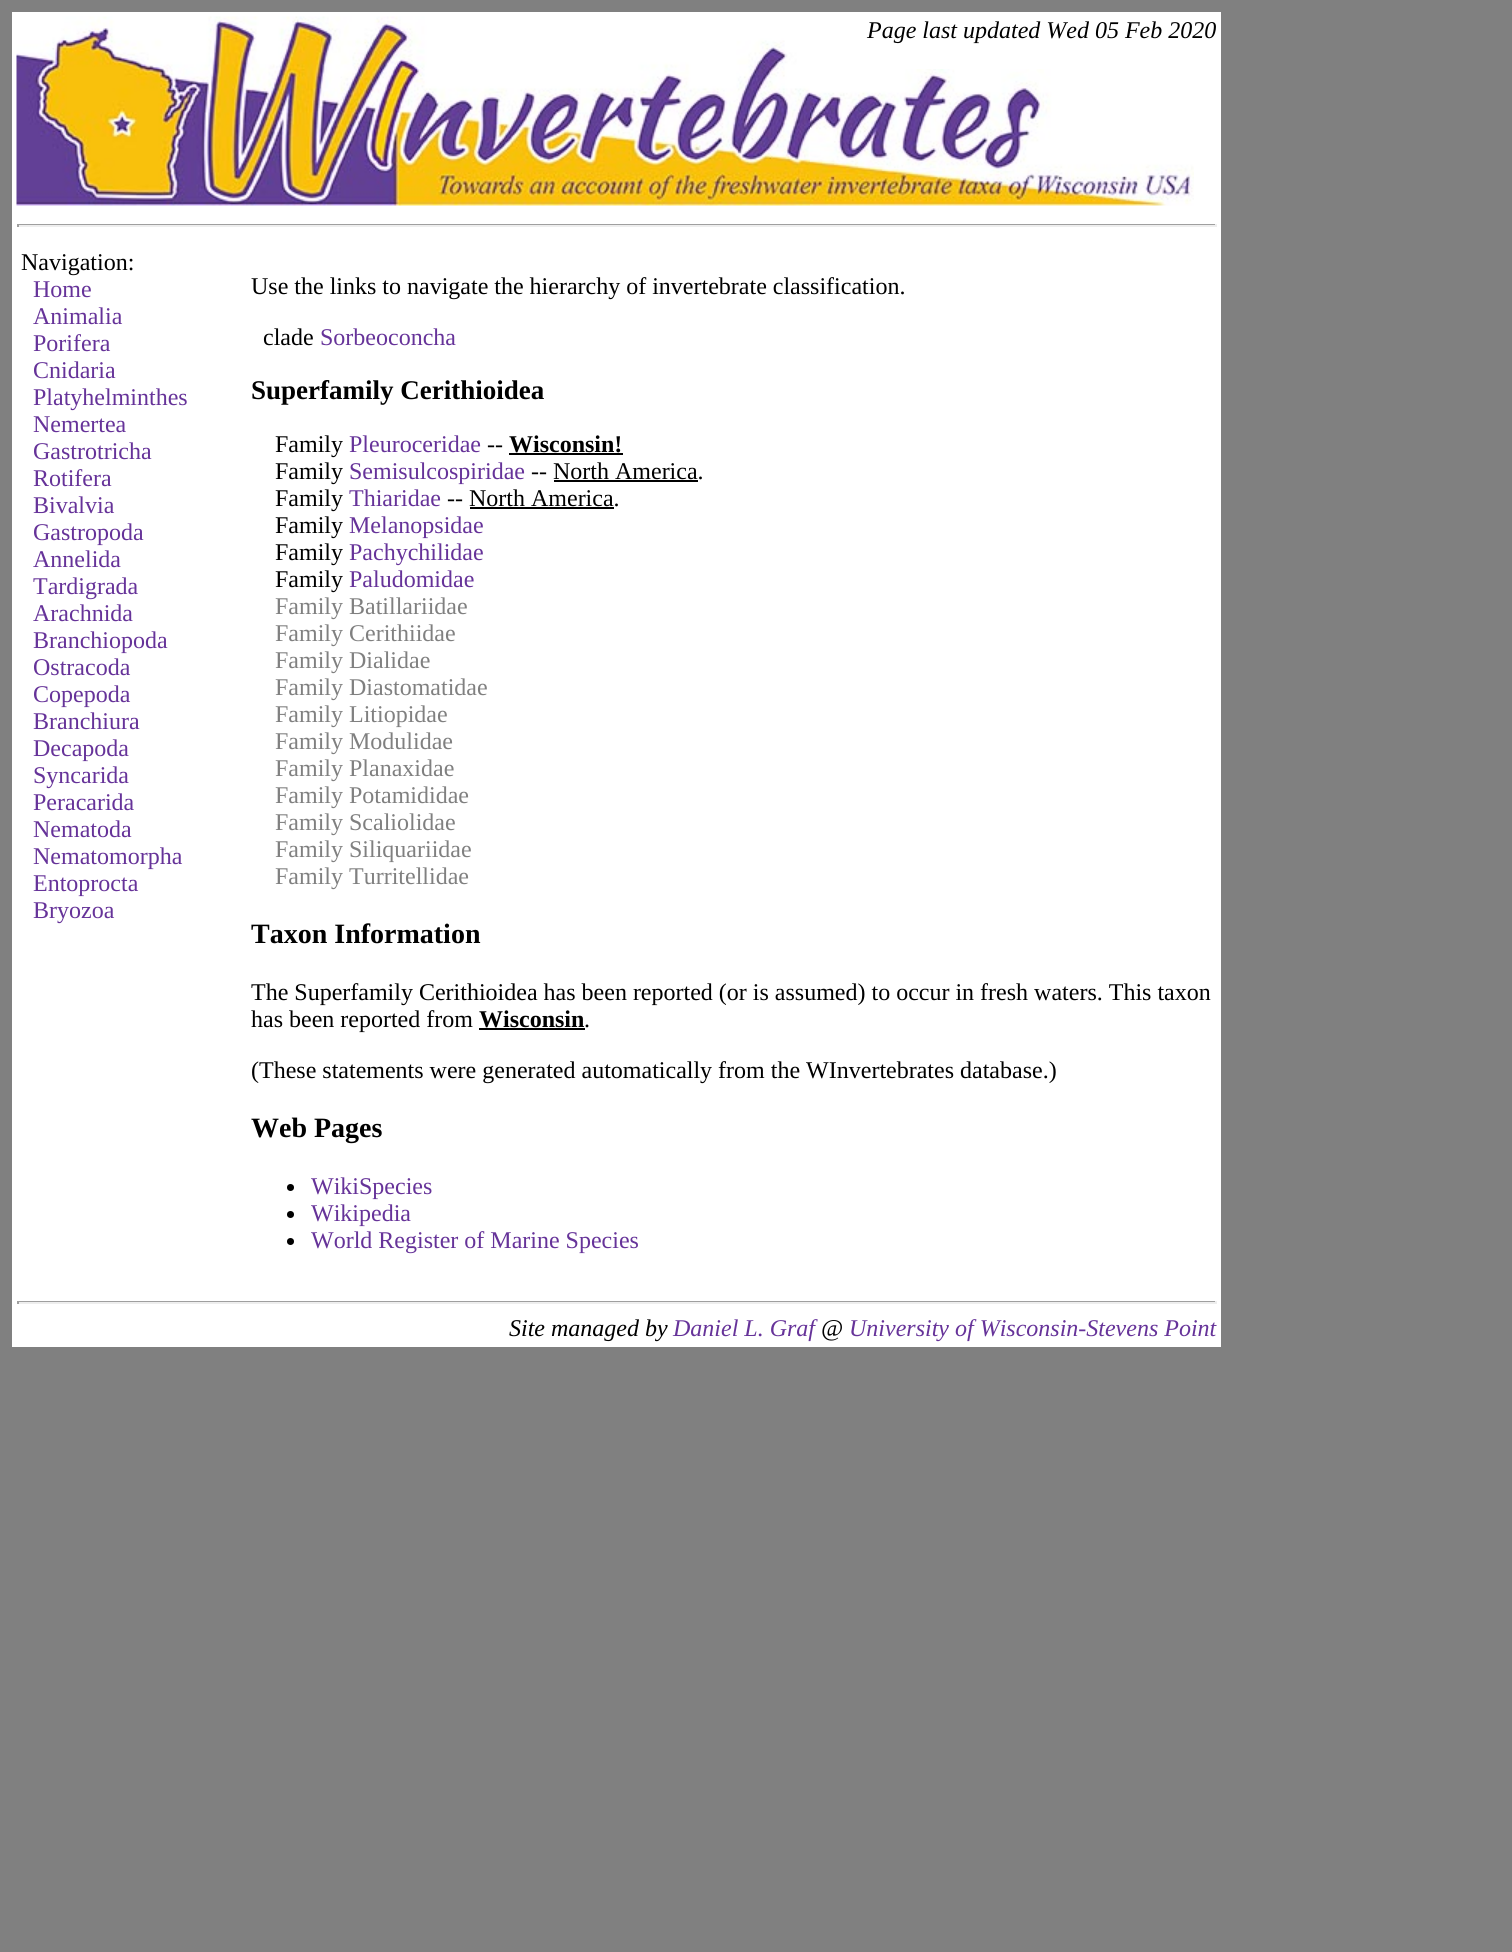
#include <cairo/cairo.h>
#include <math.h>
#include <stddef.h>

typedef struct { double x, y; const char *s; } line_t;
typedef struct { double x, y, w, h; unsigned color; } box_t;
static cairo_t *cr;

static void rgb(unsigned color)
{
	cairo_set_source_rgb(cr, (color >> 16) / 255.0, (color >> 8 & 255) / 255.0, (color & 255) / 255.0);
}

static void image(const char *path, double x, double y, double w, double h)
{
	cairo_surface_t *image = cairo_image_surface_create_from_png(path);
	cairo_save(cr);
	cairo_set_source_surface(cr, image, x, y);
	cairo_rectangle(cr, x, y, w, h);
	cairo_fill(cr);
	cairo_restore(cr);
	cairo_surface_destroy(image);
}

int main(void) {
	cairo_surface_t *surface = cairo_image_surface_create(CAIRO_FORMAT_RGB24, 1512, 1952);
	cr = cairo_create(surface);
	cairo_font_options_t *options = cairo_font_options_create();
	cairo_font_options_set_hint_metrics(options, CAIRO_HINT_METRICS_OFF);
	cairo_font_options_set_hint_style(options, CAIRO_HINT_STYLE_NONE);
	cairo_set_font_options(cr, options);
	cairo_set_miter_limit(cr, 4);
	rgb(0x808080);
	cairo_paint(cr);
	rgb(0xffffff);
	cairo_rectangle(cr, 12, 12, 1209, 1335);
	cairo_fill(cr);
	image("img/1.png", 16, 16, 794, 190);
	image("img/2.png", 810, 69, 384, 137);
	{
		static const box_t items[] = {
			{17, 224, 1200, 1, 0x9f9f9f},
			{1215, 224, 2, 3, 0xeeeeee},
			{17, 225, 1200, 2, 0xeeeeee},
			{17, 224, 2, 3, 0x9f9f9f},
			{509, 453, 114, 2, 0x000000},
			{554, 480, 144, 2, 0x000000},
			{470, 507, 144, 2, 0x000000},
			{479, 1028, 106, 2, 0x000000},
		};
		for (size_t i = 0; i < sizeof items / sizeof *items; i++) {
			rgb(items[i].color);
			cairo_rectangle(cr, items[i].x, items[i].y, items[i].w, items[i].h);
			cairo_fill(cr);
		}
	}
	cairo_arc(cr, 290.5, 1187.5, 3.5, 0, 2 * M_PI);
	cairo_fill(cr);
	cairo_arc(cr, 290.5, 1214.5, 3.5, 0, 2 * M_PI);
	cairo_fill(cr);
	cairo_arc(cr, 290.5, 1241.5, 3.5, 0, 2 * M_PI);
	cairo_fill(cr);
	{
		static const box_t items[] = {
			{17, 1301, 1200, 1, 0x9f9f9f},
			{1215, 1301, 2, 3, 0xeeeeee},
			{17, 1302, 1200, 2, 0xeeeeee},
			{17, 1301, 2, 3, 0x9f9f9f},
		};
		for (size_t i = 0; i < sizeof items / sizeof *items; i++) {
			rgb(items[i].color);
			cairo_rectangle(cr, items[i].x, items[i].y, items[i].w, items[i].h);
			cairo_fill(cr);
		}
	}
	cairo_select_font_face(cr, "Liberation Serif", CAIRO_FONT_SLANT_ITALIC, CAIRO_FONT_WEIGHT_NORMAL);
	cairo_set_font_size(cr, 24);
	rgb(0x000000);
	cairo_move_to(cr, 867, 38);
	cairo_show_text(cr, "Page last updated Wed 05 Feb 2020");
	cairo_select_font_face(cr, "Liberation Serif", CAIRO_FONT_SLANT_NORMAL, CAIRO_FONT_WEIGHT_NORMAL);
	cairo_move_to(cr, 21, 270);
	cairo_show_text(cr, "Navigation:");
	rgb(0x663399);
	{
		static const line_t items[] = {
			{33, 297, "Home"},
			{33, 324, "Animalia"},
			{33, 351, "Porifera"},
			{33, 378, "Cnidaria"},
			{33, 405, "Platyhelminthes"},
			{33, 432, "Nemertea"},
			{33, 459, "Gastrotricha"},
			{33, 486, "Rotifera"},
			{33, 513, "Bivalvia"},
			{33, 540, "Gastropoda"},
			{33, 567, "Annelida"},
			{33, 594, "Tardigrada"},
			{33, 621, "Arachnida"},
			{33, 648, "Branchiopoda"},
			{33, 675, "Ostracoda"},
			{33, 702, "Copepoda"},
			{33, 729, "Branchiura"},
			{33, 756, "Decapoda"},
			{33, 783, "Syncarida"},
			{33, 810, "Peracarida"},
			{33, 837, "Nematoda"},
			{33, 864, "Nematomorpha"},
			{33, 891, "Entoprocta"},
			{33, 918, "Bryozoa"},
		};
		for (size_t i = 0; i < sizeof items / sizeof *items; i++) {
			cairo_move_to(cr, items[i].x, items[i].y);
			cairo_show_text(cr, items[i].s);
		}
	}
	rgb(0x000000);
	cairo_move_to(cr, 251, 294);
	cairo_show_text(cr, "Use the links to navigate the hierarchy of invertebrate classification.");
	cairo_move_to(cr, 263, 345);
	cairo_show_text(cr, "clade");
	rgb(0x663399);
	cairo_move_to(cr, 320, 345);
	cairo_show_text(cr, "Sorbeoconcha");
	cairo_select_font_face(cr, "Liberation Serif", CAIRO_FONT_SLANT_NORMAL, CAIRO_FONT_WEIGHT_BOLD);
	cairo_set_font_size(cr, 27);
	rgb(0x000000);
	cairo_move_to(cr, 251, 399);
	cairo_show_text(cr, "Superfamily Cerithioidea");
	cairo_select_font_face(cr, "Liberation Serif", CAIRO_FONT_SLANT_NORMAL, CAIRO_FONT_WEIGHT_NORMAL);
	cairo_set_font_size(cr, 24);
	cairo_move_to(cr, 275, 452);
	cairo_show_text(cr, "Family");
	rgb(0x663399);
	cairo_move_to(cr, 349, 452);
	cairo_show_text(cr, "Pleuroceridae");
	rgb(0x000000);
	cairo_move_to(cr, 487, 452);
	cairo_show_text(cr, "--");
	cairo_select_font_face(cr, "Liberation Serif", CAIRO_FONT_SLANT_NORMAL, CAIRO_FONT_WEIGHT_BOLD);
	cairo_move_to(cr, 509, 452);
	cairo_show_text(cr, "Wisconsin!");
	cairo_select_font_face(cr, "Liberation Serif", CAIRO_FONT_SLANT_NORMAL, CAIRO_FONT_WEIGHT_NORMAL);
	cairo_move_to(cr, 275, 479);
	cairo_show_text(cr, "Family");
	rgb(0x663399);
	cairo_move_to(cr, 349, 479);
	cairo_show_text(cr, "Semisulcospiridae");
	rgb(0x000000);
	cairo_move_to(cr, 531, 479);
	cairo_show_text(cr, "-- North America.");
	cairo_move_to(cr, 275, 506);
	cairo_show_text(cr, "Family");
	rgb(0x663399);
	cairo_move_to(cr, 349, 506);
	cairo_show_text(cr, "Thiaridae");
	rgb(0x000000);
	cairo_move_to(cr, 447, 506);
	cairo_show_text(cr, "-- North America.");
	cairo_move_to(cr, 275, 533);
	cairo_show_text(cr, "Family");
	rgb(0x663399);
	cairo_move_to(cr, 349, 533);
	cairo_show_text(cr, "Melanopsidae");
	rgb(0x000000);
	cairo_move_to(cr, 275, 560);
	cairo_show_text(cr, "Family");
	rgb(0x663399);
	cairo_move_to(cr, 349, 560);
	cairo_show_text(cr, "Pachychilidae");
	rgb(0x000000);
	cairo_move_to(cr, 275, 587);
	cairo_show_text(cr, "Family");
	rgb(0x663399);
	cairo_move_to(cr, 349, 587);
	cairo_show_text(cr, "Paludomidae");
	rgb(0x808080);
	{
		static const line_t items[] = {
			{275, 614, "Family Batillariidae"},
			{275, 641, "Family Cerithiidae"},
			{275, 668, "Family Dialidae"},
			{275, 695, "Family Diastomatidae"},
			{275, 722, "Family Litiopidae"},
			{275, 749, "Family Modulidae"},
			{275, 776, "Family Planaxidae"},
			{275, 803, "Family Potamididae"},
			{275, 830, "Family Scaliolidae"},
			{275, 857, "Family Siliquariidae"},
			{275, 884, "Family Turritellidae"},
		};
		for (size_t i = 0; i < sizeof items / sizeof *items; i++) {
			cairo_move_to(cr, items[i].x, items[i].y);
			cairo_show_text(cr, items[i].s);
		}
	}
	cairo_select_font_face(cr, "Liberation Serif", CAIRO_FONT_SLANT_NORMAL, CAIRO_FONT_WEIGHT_BOLD);
	cairo_set_font_size(cr, 28);
	rgb(0x000000);
	cairo_move_to(cr, 251, 943);
	cairo_show_text(cr, "Taxon Information");
	cairo_select_font_face(cr, "Liberation Serif", CAIRO_FONT_SLANT_NORMAL, CAIRO_FONT_WEIGHT_NORMAL);
	cairo_set_font_size(cr, 24);
	cairo_move_to(cr, 251, 1000);
	cairo_show_text(cr, "The Superfamily Cerithioidea has been reported (or is assumed) to occur in fresh waters. This taxon");
	cairo_move_to(cr, 251, 1027);
	cairo_show_text(cr, "has been reported from");
	cairo_select_font_face(cr, "Liberation Serif", CAIRO_FONT_SLANT_NORMAL, CAIRO_FONT_WEIGHT_BOLD);
	cairo_move_to(cr, 479, 1027);
	cairo_show_text(cr, "Wisconsin");
	cairo_select_font_face(cr, "Liberation Serif", CAIRO_FONT_SLANT_NORMAL, CAIRO_FONT_WEIGHT_NORMAL);
	cairo_move_to(cr, 584, 1027);
	cairo_show_text(cr, ".");
	cairo_move_to(cr, 251, 1078);
	cairo_show_text(cr, "(These statements were generated automatically from the WInvertebrates database.)");
	cairo_select_font_face(cr, "Liberation Serif", CAIRO_FONT_SLANT_NORMAL, CAIRO_FONT_WEIGHT_BOLD);
	cairo_set_font_size(cr, 28);
	cairo_move_to(cr, 251, 1137);
	cairo_show_text(cr, "Web Pages");
	cairo_select_font_face(cr, "Liberation Serif", CAIRO_FONT_SLANT_NORMAL, CAIRO_FONT_WEIGHT_NORMAL);
	cairo_set_font_size(cr, 24);
	rgb(0x663399);
	{
		static const line_t items[] = {
			{311, 1194, "WikiSpecies"},
			{311, 1221, "Wikipedia"},
			{311, 1248, "World Register of Marine Species"},
		};
		for (size_t i = 0; i < sizeof items / sizeof *items; i++) {
			cairo_move_to(cr, items[i].x, items[i].y);
			cairo_show_text(cr, items[i].s);
		}
	}
	cairo_select_font_face(cr, "Liberation Serif", CAIRO_FONT_SLANT_ITALIC, CAIRO_FONT_WEIGHT_NORMAL);
	rgb(0x000000);
	cairo_move_to(cr, 509, 1336);
	cairo_show_text(cr, "Site managed by");
	rgb(0x663399);
	cairo_move_to(cr, 673, 1336);
	cairo_show_text(cr, "Daniel L. Graf");
	rgb(0x000000);
	cairo_move_to(cr, 821, 1336);
	cairo_show_text(cr, "@");
	rgb(0x663399);
	cairo_move_to(cr, 849, 1336);
	cairo_show_text(cr, "University of Wisconsin-Stevens Point");
	cairo_surface_write_to_png(surface, "page.png");
	cairo_font_options_destroy(options);
	cairo_destroy(cr);
	cairo_surface_destroy(surface);
	return 0;
}
